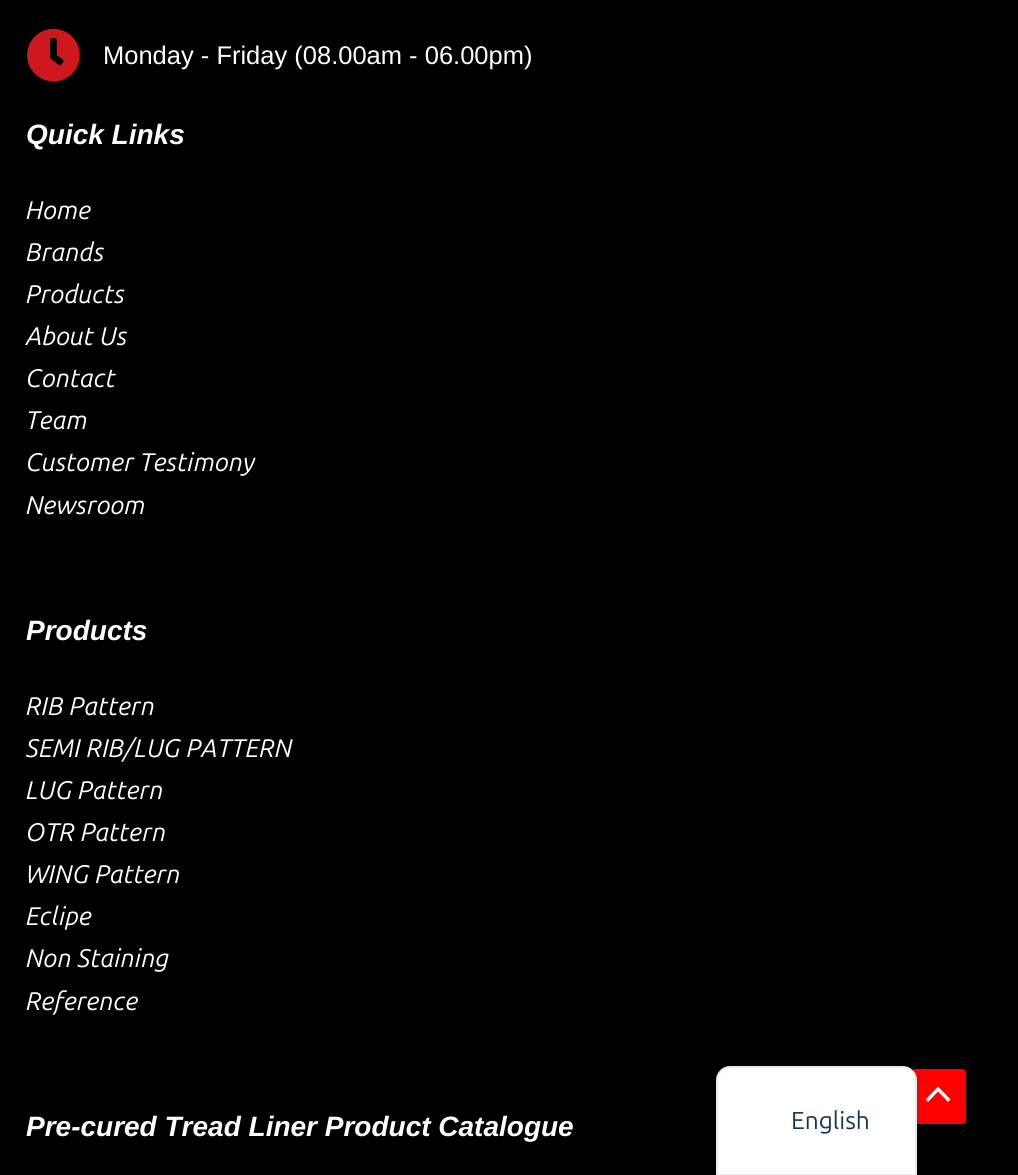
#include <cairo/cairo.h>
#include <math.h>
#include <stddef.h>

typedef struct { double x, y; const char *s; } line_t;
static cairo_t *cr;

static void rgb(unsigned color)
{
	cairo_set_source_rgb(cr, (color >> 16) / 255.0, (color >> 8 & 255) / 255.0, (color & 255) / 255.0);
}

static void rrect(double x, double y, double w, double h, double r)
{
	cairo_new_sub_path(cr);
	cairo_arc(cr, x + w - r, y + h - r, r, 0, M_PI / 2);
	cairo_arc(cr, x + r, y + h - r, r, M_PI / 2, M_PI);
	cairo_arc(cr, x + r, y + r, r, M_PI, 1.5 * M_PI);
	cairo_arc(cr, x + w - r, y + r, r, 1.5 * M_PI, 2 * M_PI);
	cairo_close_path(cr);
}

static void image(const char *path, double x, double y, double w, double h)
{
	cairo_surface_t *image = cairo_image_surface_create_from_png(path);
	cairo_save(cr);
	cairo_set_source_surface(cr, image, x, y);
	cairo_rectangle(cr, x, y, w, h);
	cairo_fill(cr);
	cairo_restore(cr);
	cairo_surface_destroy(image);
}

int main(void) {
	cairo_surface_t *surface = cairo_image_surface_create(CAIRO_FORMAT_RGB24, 1018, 1175);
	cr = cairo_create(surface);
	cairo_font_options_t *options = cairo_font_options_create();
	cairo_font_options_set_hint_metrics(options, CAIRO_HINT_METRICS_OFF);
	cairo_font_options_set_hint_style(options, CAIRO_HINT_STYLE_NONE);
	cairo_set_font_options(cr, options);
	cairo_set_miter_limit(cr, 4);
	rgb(0x000000);
	cairo_paint(cr);
	image("img/1.png", 27, 28, 53, 54);
	rgb(0xff0000);
	rrect(912, 1069, 54, 55, 4);
	cairo_fill(cr);
	rgb(0xffffff);
	cairo_new_path(cr);
	cairo_move_to(cr, 730, 1066);
	cairo_line_to(cr, 903, 1066);
	cairo_curve_to(cr, 910.5, 1066, 917, 1072.5, 917, 1080);
	cairo_line_to(cr, 917, 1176);
	cairo_line_to(cr, 716, 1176);
	cairo_line_to(cr, 716, 1080);
	cairo_curve_to(cr, 716, 1072.5, 722.5, 1066, 730, 1066);
	cairo_close_path(cr);
	cairo_fill(cr);
	cairo_new_path(cr);
	cairo_move_to(cr, 730, 1067);
	cairo_line_to(cr, 903, 1067);
	cairo_curve_to(cr, 910, 1067, 916, 1073, 916, 1080);
	cairo_line_to(cr, 916, 1175);
	cairo_line_to(cr, 717, 1175);
	cairo_line_to(cr, 717, 1080);
	cairo_curve_to(cr, 717, 1073, 723, 1067, 730, 1067);
	cairo_close_path(cr);
	cairo_set_source_rgba(cr, 0.078, 0.22, 0.322, 0.1);
	cairo_stroke(cr);
	rgb(0xffffff);
	cairo_new_path(cr);
	cairo_move_to(cr, 950.5, 1099.5);
	cairo_line_to(cr, 938, 1086.5);
	cairo_line_to(cr, 925.5, 1099.5);
	cairo_line_to(cr, 928, 1102);
	cairo_line_to(cr, 938, 1091.5);
	cairo_line_to(cr, 948, 1102);
	cairo_close_path(cr);
	cairo_fill(cr);
	cairo_select_font_face(cr, "Liberation Sans", CAIRO_FONT_SLANT_NORMAL, CAIRO_FONT_WEIGHT_NORMAL);
	cairo_set_font_size(cr, 25.5);
	cairo_move_to(cr, 103, 64);
	cairo_show_text(cr, "Monday - Friday (08.00am - 06.00pm)");
	cairo_select_font_face(cr, "Liberation Sans", CAIRO_FONT_SLANT_ITALIC, CAIRO_FONT_WEIGHT_BOLD);
	cairo_set_font_size(cr, 28);
	cairo_move_to(cr, 26, 144);
	cairo_show_text(cr, "Quick Links");
	cairo_select_font_face(cr, "Ubuntu", CAIRO_FONT_SLANT_ITALIC, CAIRO_FONT_WEIGHT_NORMAL);
	cairo_set_font_size(cr, 25.5);
	{
		static const line_t items[] = {
			{26, 219, "Home"},
			{26, 261, "Brands"},
			{26, 303, "Products"},
			{26, 345, "About Us"},
			{26, 387, "Contact"},
			{26, 429, "Team"},
			{26, 471, "Customer Testimony"},
			{26, 514, "Newsroom"},
		};
		for (size_t i = 0; i < sizeof items / sizeof *items; i++) {
			cairo_move_to(cr, items[i].x, items[i].y);
			cairo_show_text(cr, items[i].s);
		}
	}
	cairo_select_font_face(cr, "Liberation Sans", CAIRO_FONT_SLANT_ITALIC, CAIRO_FONT_WEIGHT_BOLD);
	cairo_set_font_size(cr, 28);
	cairo_move_to(cr, 26, 640);
	cairo_show_text(cr, "Products");
	cairo_select_font_face(cr, "Ubuntu", CAIRO_FONT_SLANT_ITALIC, CAIRO_FONT_WEIGHT_NORMAL);
	cairo_set_font_size(cr, 25.5);
	{
		static const line_t items[] = {
			{26, 715, "RIB Pattern"},
			{26, 757, "SEMI RIB/LUG PATTERN"},
			{26, 799, "LUG Pattern"},
			{26, 841, "OTR Pattern"},
			{26, 883, "WING Pattern"},
			{26, 925, "Eclipe"},
			{26, 967, "Non Staining"},
			{26, 1010, "Reference"},
		};
		for (size_t i = 0; i < sizeof items / sizeof *items; i++) {
			cairo_move_to(cr, items[i].x, items[i].y);
			cairo_show_text(cr, items[i].s);
		}
	}
	cairo_select_font_face(cr, "Liberation Sans", CAIRO_FONT_SLANT_ITALIC, CAIRO_FONT_WEIGHT_BOLD);
	cairo_set_font_size(cr, 28);
	cairo_move_to(cr, 26, 1136);
	cairo_show_text(cr, "Pre-cured Tread Liner Product Catalogue");
	cairo_select_font_face(cr, "Ubuntu", CAIRO_FONT_SLANT_NORMAL, CAIRO_FONT_WEIGHT_NORMAL);
	cairo_set_font_size(cr, 24.5);
	rgb(0x143852);
	cairo_move_to(cr, 791, 1129);
	cairo_show_text(cr, "English");
	cairo_surface_write_to_png(surface, "page.png");
	cairo_font_options_destroy(options);
	cairo_destroy(cr);
	cairo_surface_destroy(surface);
	return 0;
}
